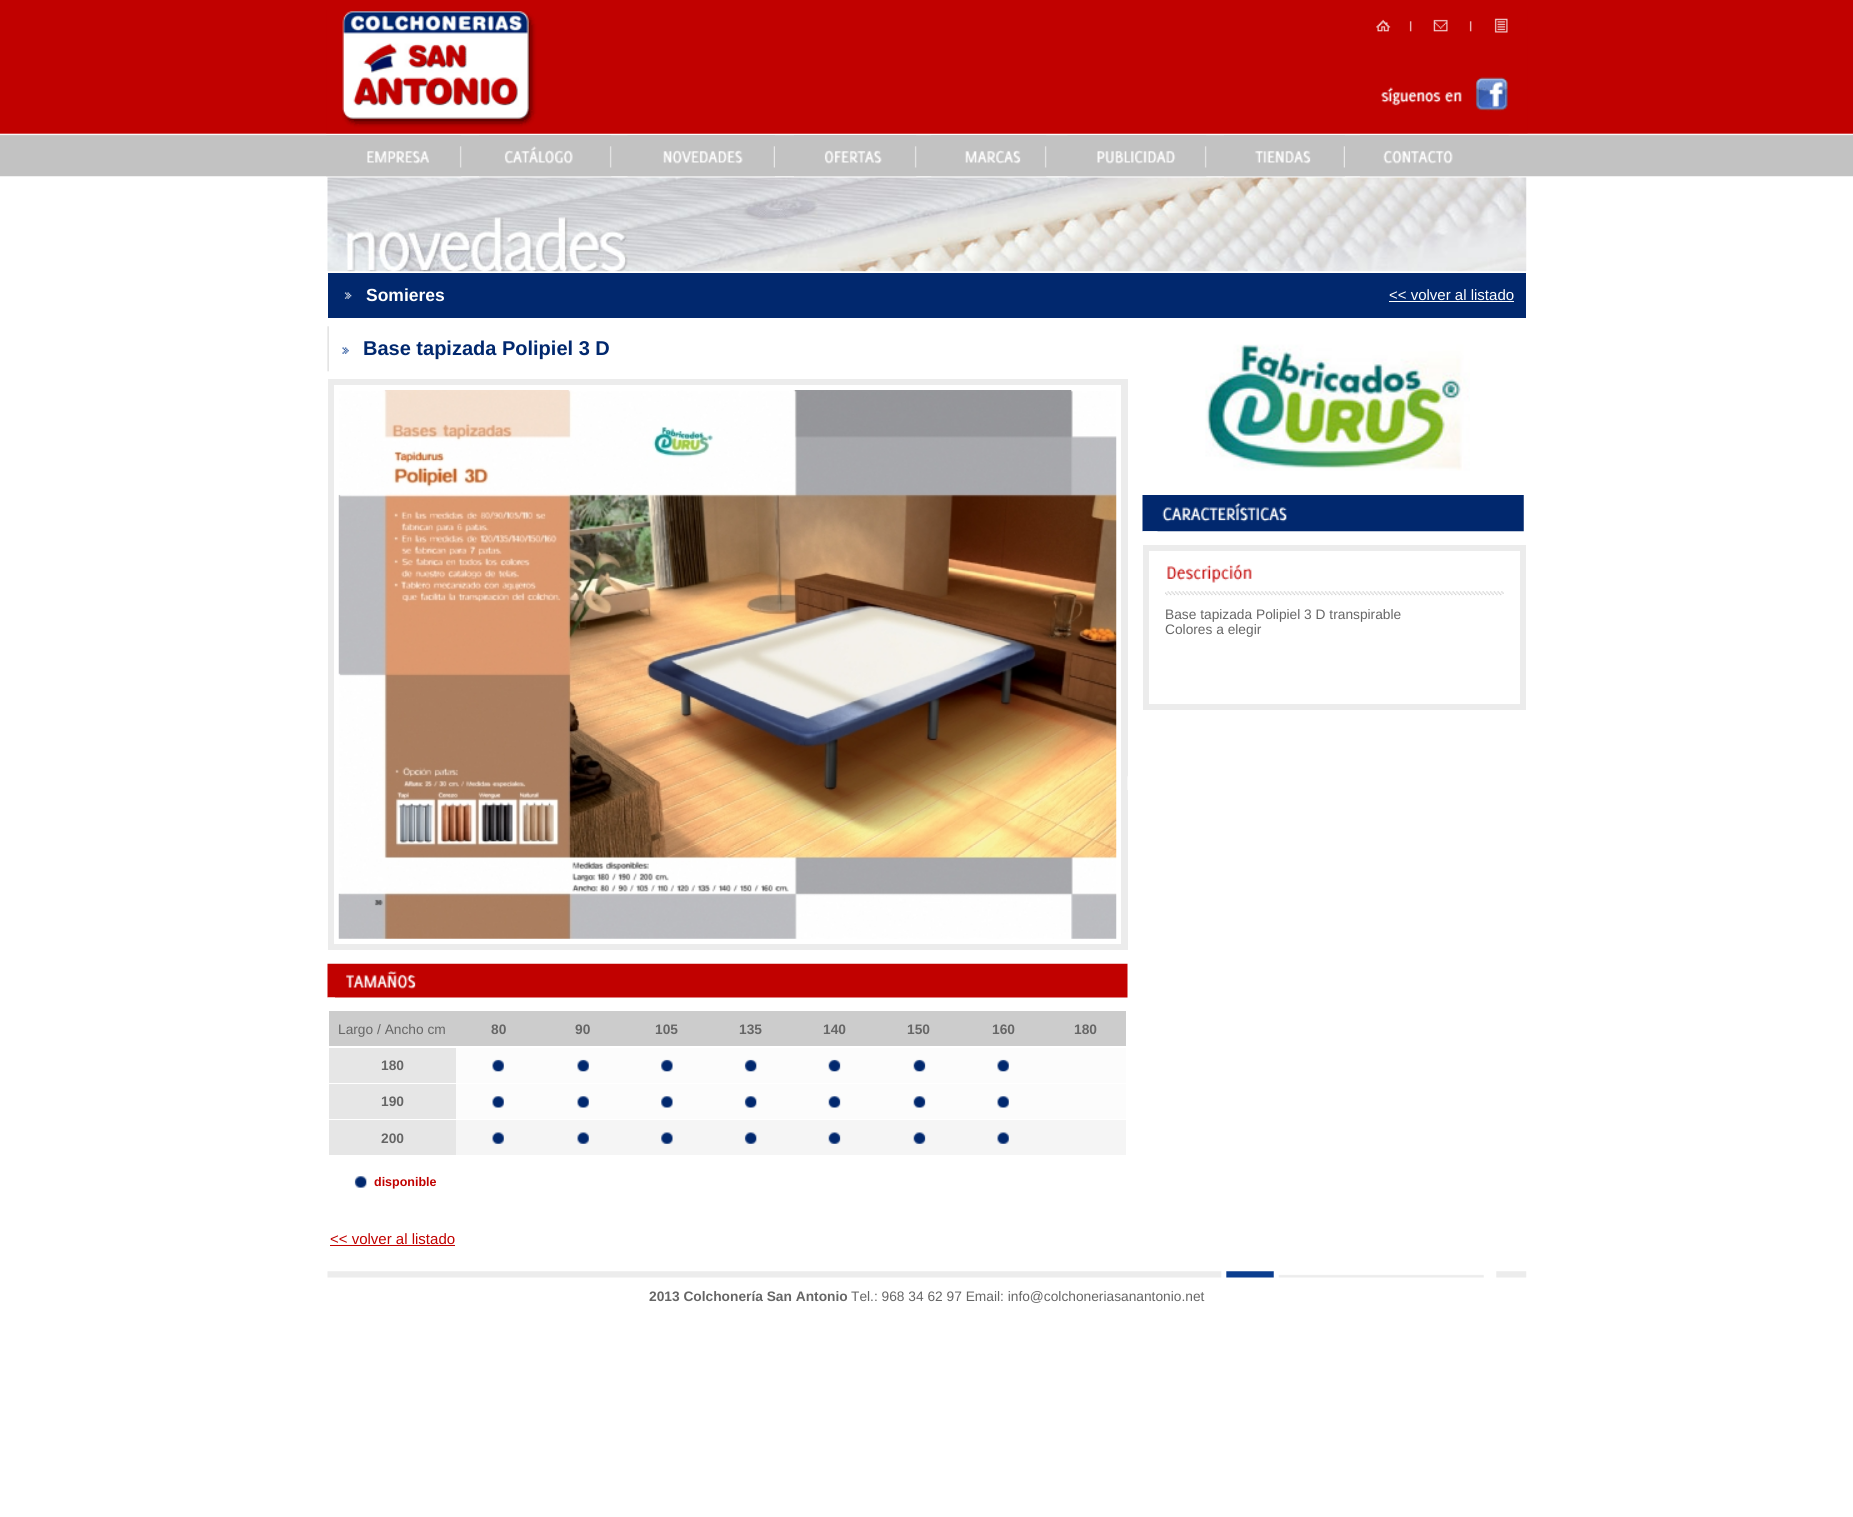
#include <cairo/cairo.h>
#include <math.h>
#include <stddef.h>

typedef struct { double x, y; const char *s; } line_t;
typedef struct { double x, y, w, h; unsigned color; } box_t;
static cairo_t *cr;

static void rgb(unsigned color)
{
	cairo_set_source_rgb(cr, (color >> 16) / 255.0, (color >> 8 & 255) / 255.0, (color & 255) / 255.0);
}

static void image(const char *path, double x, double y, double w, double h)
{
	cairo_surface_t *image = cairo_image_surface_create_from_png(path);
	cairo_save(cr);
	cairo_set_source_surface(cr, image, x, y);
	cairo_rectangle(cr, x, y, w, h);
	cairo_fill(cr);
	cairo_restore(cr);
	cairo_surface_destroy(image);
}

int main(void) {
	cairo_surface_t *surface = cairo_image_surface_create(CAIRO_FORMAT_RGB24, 1853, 1517);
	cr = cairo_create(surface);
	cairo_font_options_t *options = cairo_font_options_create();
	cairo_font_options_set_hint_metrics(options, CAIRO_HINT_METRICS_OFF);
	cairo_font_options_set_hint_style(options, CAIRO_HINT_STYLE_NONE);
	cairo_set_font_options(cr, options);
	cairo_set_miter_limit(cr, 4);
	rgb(0xffffff);
	cairo_paint(cr);
	image("img/1.png", 0, 0, 1853, 177);
	image("img/2.png", 326, 10, 1202, 125);
	image("img/3.png", 326, 135, 136, 42);
	image("img/4.png", 479, 135, 133, 42);
	image("img/5.png", 627, 135, 148, 42);
	image("img/6.png", 794, 135, 123, 42);
	image("img/7.png", 931, 135, 116, 42);
	image("img/8.png", 1067, 135, 140, 42);
	image("img/9.png", 1224, 135, 121, 42);
	image("img/10.png", 1360, 135, 149, 42);
	image("img/11.png", 327, 177, 1200, 95);
	rgb(0x01286e);
	cairo_rectangle(cr, 328, 273, 1198, 45);
	cairo_fill(cr);
	image("img/12.png", 344, 292, 8, 7);
	rgb(0xfefefe);
	cairo_rectangle(cr, 1389, 301, 125, 1);
	cairo_fill(cr);
	image("img/13.png", 327, 326, 22, 46);
	image("img/14.png", 1205, 344, 265, 127);
	image("img/15.png", 1142, 495, 382, 37);
	image("img/16.png", 1142, 531, 16, 1);
	rgb(0xececec);
	cairo_rectangle(cr, 1143, 545, 383, 165);
	cairo_fill(cr);
	rgb(0xffffff);
	cairo_rectangle(cr, 1149, 551, 371, 153);
	cairo_fill(cr);
	image("img/17.png", 1165, 564, 339, 32);
	rgb(0xececec);
	cairo_rectangle(cr, 328, 379, 800, 571);
	cairo_fill(cr);
	image("img/18.png", 1127, 776, 1, 14);
	rgb(0xffffff);
	cairo_rectangle(cr, 334, 385, 787, 559);
	cairo_fill(cr);
	image("img/19.png", 338, 390, 779, 549);
	image("img/20.png", 327, 963, 801, 35);
	image("img/21.png", 327, 997, 8, 1);
	{
		static const box_t items[] = {
			{329, 1011, 797, 35, 0xcccccc},
			{456, 1048, 670, 35, 0xfcfcfc},
			{329, 1048, 127, 35, 0xe6e6e6},
		};
		for (size_t i = 0; i < sizeof items / sizeof *items; i++) {
			rgb(items[i].color);
			cairo_rectangle(cr, items[i].x, items[i].y, items[i].w, items[i].h);
			cairo_fill(cr);
		}
	}
	image("img/22.png", 492, 1059, 12, 13);
	image("img/22.png", 577, 1059, 12, 13);
	image("img/23.png", 661, 1059, 12, 13);
	image("img/24.png", 744, 1059, 13, 13);
	image("img/25.png", 828, 1059, 13, 13);
	image("img/25.png", 913, 1059, 13, 13);
	image("img/22.png", 997, 1059, 12, 13);
	rgb(0xfcfcfc);
	cairo_rectangle(cr, 456, 1084, 670, 35);
	cairo_fill(cr);
	rgb(0xe6e6e6);
	cairo_rectangle(cr, 329, 1084, 127, 35);
	cairo_fill(cr);
	image("img/26.png", 492, 1096, 12, 12);
	image("img/26.png", 577, 1096, 12, 12);
	image("img/27.png", 661, 1096, 12, 12);
	image("img/28.png", 744, 1096, 13, 12);
	image("img/29.png", 828, 1096, 13, 12);
	image("img/29.png", 913, 1096, 13, 12);
	image("img/26.png", 997, 1096, 12, 12);
	rgb(0xf5f5f5);
	cairo_rectangle(cr, 456, 1120, 670, 35);
	cairo_fill(cr);
	rgb(0xe6e6e6);
	cairo_rectangle(cr, 329, 1120, 127, 35);
	cairo_fill(cr);
	image("img/30.png", 492, 1132, 12, 12);
	image("img/30.png", 577, 1132, 12, 12);
	image("img/31.png", 661, 1132, 12, 12);
	image("img/32.png", 744, 1132, 13, 12);
	image("img/33.png", 828, 1132, 13, 12);
	image("img/33.png", 913, 1132, 13, 12);
	image("img/30.png", 997, 1132, 12, 12);
	image("img/34.png", 354, 1176, 13, 12);
	rgb(0xc10100);
	cairo_rectangle(cr, 330, 1245, 125, 1);
	cairo_fill(cr);
	image("img/35.png", 327, 1271, 1200, 7);
	cairo_select_font_face(cr, "Liberation Sans", CAIRO_FONT_SLANT_NORMAL, CAIRO_FONT_WEIGHT_BOLD);
	cairo_set_font_size(cr, 17.5);
	rgb(0xffffff);
	cairo_move_to(cr, 366, 301);
	cairo_show_text(cr, "Somieres");
	cairo_select_font_face(cr, "Liberation Sans", CAIRO_FONT_SLANT_NORMAL, CAIRO_FONT_WEIGHT_NORMAL);
	cairo_set_font_size(cr, 15);
	cairo_move_to(cr, 1389, 300);
	cairo_show_text(cr, "<< volver al listado");
	cairo_select_font_face(cr, "Liberation Sans", CAIRO_FONT_SLANT_NORMAL, CAIRO_FONT_WEIGHT_BOLD);
	cairo_set_font_size(cr, 20);
	rgb(0x01286e);
	cairo_move_to(cr, 363, 355);
	cairo_show_text(cr, "Base tapizada Polipiel 3 D");
	cairo_select_font_face(cr, "Liberation Sans", CAIRO_FONT_SLANT_NORMAL, CAIRO_FONT_WEIGHT_NORMAL);
	cairo_set_font_size(cr, 13.75);
	rgb(0x666666);
	{
		static const line_t items[] = {
			{1165, 619, "Base tapizada Polipiel 3 D transpirable"},
			{1165, 634, "Colores a elegir"},
			{338, 1034, "Largo / Ancho cm"},
		};
		for (size_t i = 0; i < sizeof items / sizeof *items; i++) {
			cairo_move_to(cr, items[i].x, items[i].y);
			cairo_show_text(cr, items[i].s);
		}
	}
	cairo_select_font_face(cr, "Liberation Sans", CAIRO_FONT_SLANT_NORMAL, CAIRO_FONT_WEIGHT_BOLD);
	{
		static const line_t items[] = {
			{491, 1034, "80"},
			{575, 1034, "90"},
			{655, 1034, "105"},
			{739, 1034, "135"},
			{823, 1034, "140"},
			{907, 1034, "150"},
			{992, 1034, "160"},
			{1074, 1034, "180"},
			{381, 1070, "180"},
			{381, 1106, "190"},
			{381, 1143, "200"},
		};
		for (size_t i = 0; i < sizeof items / sizeof *items; i++) {
			cairo_move_to(cr, items[i].x, items[i].y);
			cairo_show_text(cr, items[i].s);
		}
	}
	cairo_set_font_size(cr, 12.5);
	rgb(0xc10100);
	cairo_move_to(cr, 374, 1186);
	cairo_show_text(cr, "disponible");
	cairo_select_font_face(cr, "Liberation Sans", CAIRO_FONT_SLANT_NORMAL, CAIRO_FONT_WEIGHT_NORMAL);
	cairo_set_font_size(cr, 15);
	cairo_move_to(cr, 330, 1244);
	cairo_show_text(cr, "<< volver al listado");
	cairo_select_font_face(cr, "Liberation Sans", CAIRO_FONT_SLANT_NORMAL, CAIRO_FONT_WEIGHT_BOLD);
	cairo_set_font_size(cr, 13.75);
	rgb(0x666666);
	cairo_move_to(cr, 649, 1301);
	cairo_show_text(cr, "2013 Colchonería San Antonio");
	cairo_select_font_face(cr, "Liberation Sans", CAIRO_FONT_SLANT_NORMAL, CAIRO_FONT_WEIGHT_NORMAL);
	cairo_move_to(cr, 851, 1301);
	cairo_show_text(cr, "Tel.: 968 34 62 97 Email: info@colchoneriasanantonio.net");
	cairo_surface_write_to_png(surface, "page.png");
	cairo_font_options_destroy(options);
	cairo_destroy(cr);
	cairo_surface_destroy(surface);
	return 0;
}
